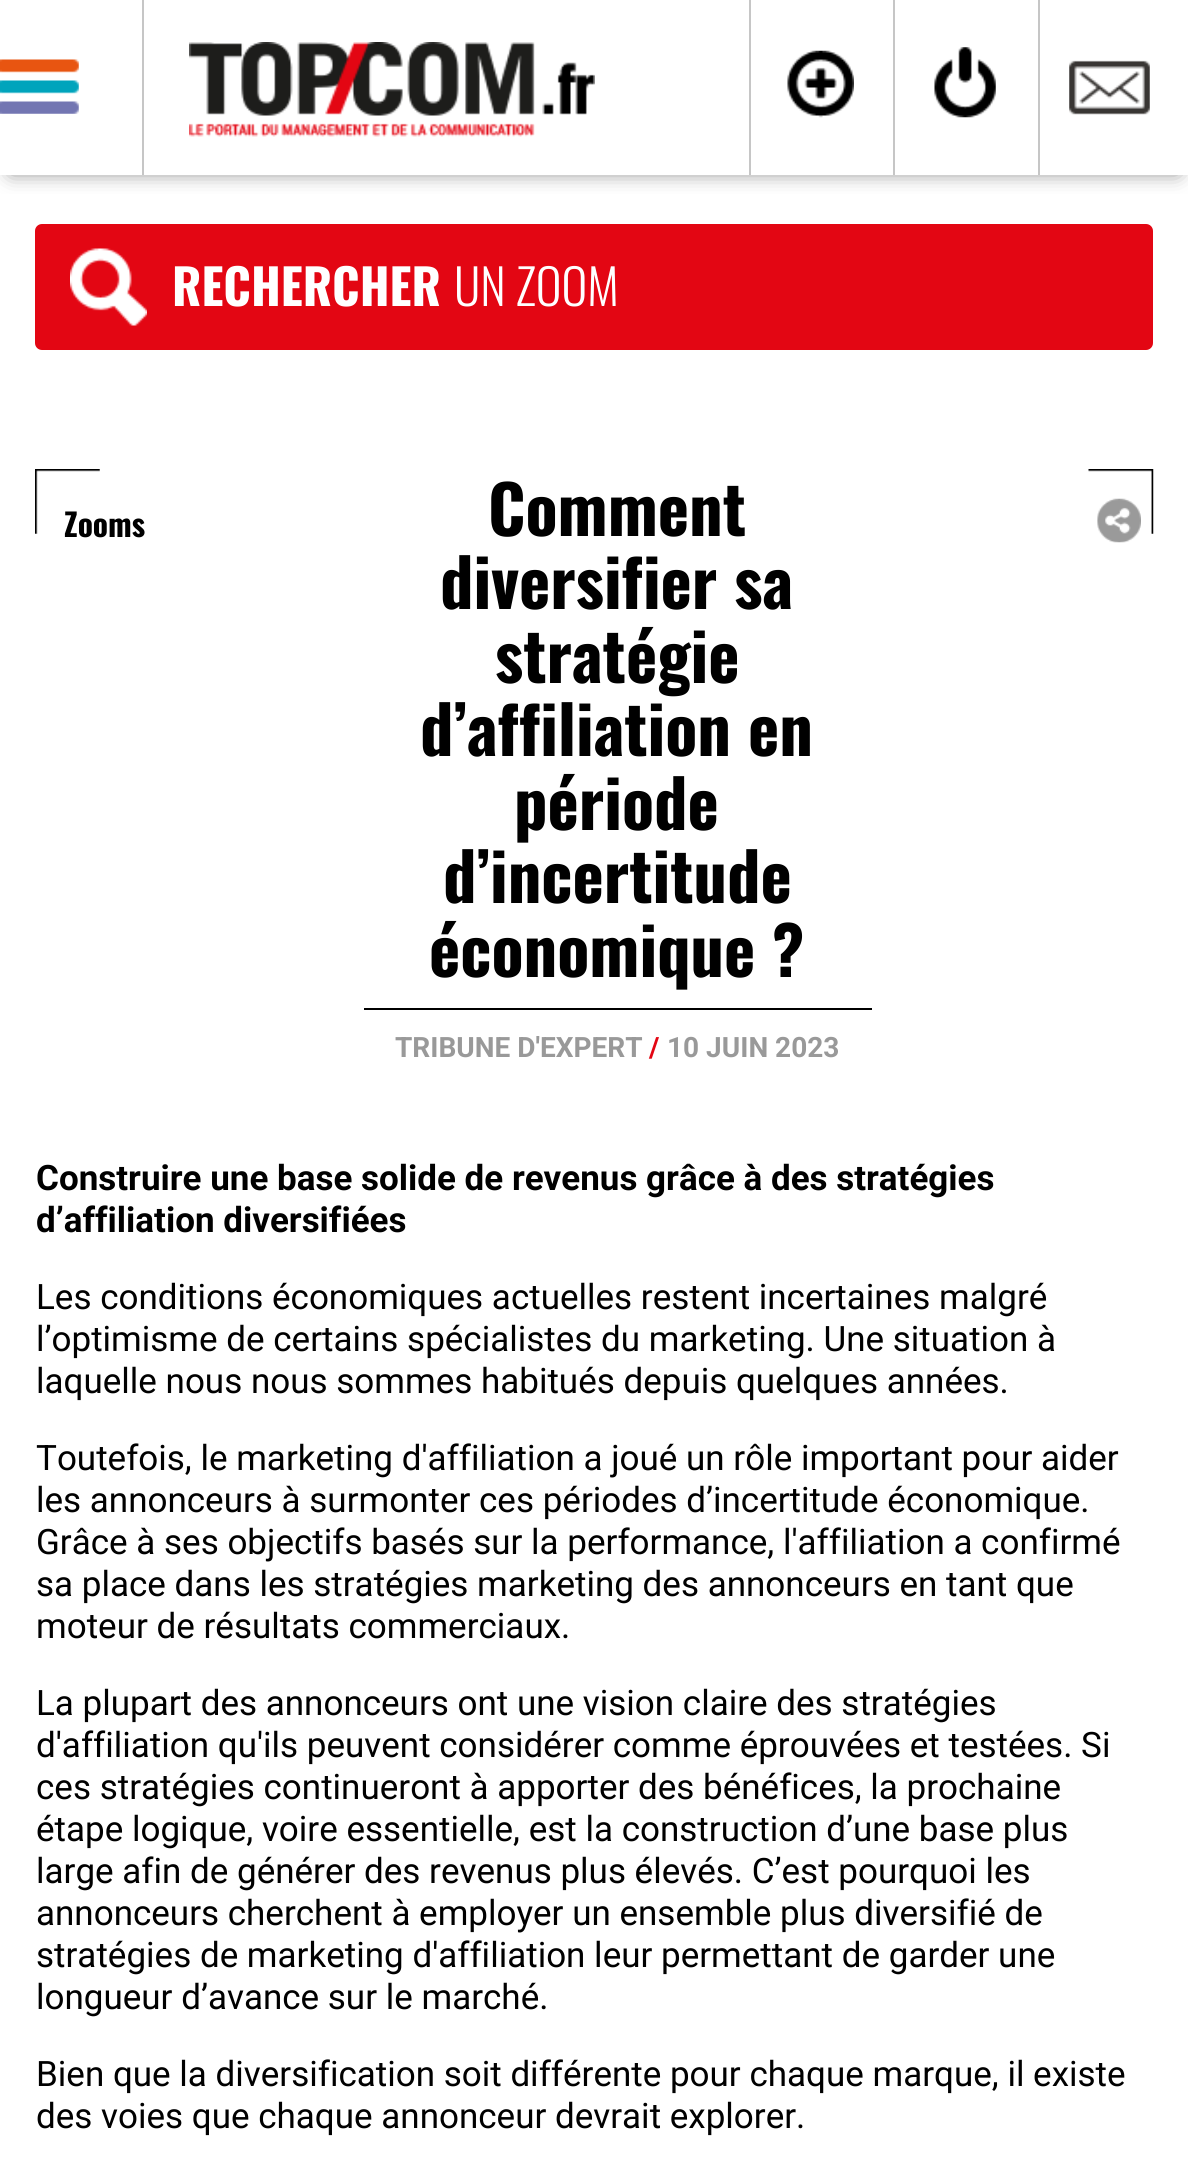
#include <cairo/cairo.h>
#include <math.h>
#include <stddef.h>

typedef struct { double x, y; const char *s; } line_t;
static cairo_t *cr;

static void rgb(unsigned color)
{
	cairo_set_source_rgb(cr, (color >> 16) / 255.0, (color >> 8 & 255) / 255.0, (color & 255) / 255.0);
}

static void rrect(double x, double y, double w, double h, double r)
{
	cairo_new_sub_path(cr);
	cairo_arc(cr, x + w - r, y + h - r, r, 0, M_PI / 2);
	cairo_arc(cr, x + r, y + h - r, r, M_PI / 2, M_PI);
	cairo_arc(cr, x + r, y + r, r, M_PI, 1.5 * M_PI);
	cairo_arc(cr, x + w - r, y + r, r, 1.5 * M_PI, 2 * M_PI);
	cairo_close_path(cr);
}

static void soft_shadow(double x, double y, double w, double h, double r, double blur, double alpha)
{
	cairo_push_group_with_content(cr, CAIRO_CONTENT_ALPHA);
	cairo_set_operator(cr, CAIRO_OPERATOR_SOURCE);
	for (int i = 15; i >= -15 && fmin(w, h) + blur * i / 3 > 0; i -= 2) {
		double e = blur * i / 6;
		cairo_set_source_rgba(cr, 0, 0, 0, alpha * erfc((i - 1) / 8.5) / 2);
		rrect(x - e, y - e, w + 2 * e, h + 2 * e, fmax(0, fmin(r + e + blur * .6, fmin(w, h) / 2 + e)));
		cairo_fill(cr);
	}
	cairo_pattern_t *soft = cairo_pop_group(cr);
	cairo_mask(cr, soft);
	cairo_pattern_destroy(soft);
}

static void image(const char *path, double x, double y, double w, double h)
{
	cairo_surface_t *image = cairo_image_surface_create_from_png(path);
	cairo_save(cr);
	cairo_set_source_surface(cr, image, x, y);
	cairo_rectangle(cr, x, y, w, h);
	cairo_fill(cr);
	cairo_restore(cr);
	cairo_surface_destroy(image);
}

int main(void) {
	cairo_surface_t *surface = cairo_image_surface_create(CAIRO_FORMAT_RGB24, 1188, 2165);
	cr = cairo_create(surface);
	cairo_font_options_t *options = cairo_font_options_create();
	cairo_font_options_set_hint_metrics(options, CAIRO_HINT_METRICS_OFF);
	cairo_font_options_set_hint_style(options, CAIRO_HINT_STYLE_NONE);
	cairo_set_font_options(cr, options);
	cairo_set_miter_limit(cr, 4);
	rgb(0xffffff);
	cairo_paint(cr);
	cairo_save(cr);
	cairo_rectangle(cr, 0, 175, 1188, 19);
	cairo_clip(cr);
	rgb(0x808080);
	soft_shadow(11, 18, 1167, 154, 0, 10.5, 1);
	cairo_restore(cr);
	rgb(0xc6c6c6);
	cairo_rectangle(cr, 142, 0, 2, 175);
	cairo_fill(cr);
	image("img/1.png", 0, 59, 79, 55);
	cairo_rectangle(cr, 749, 0, 2, 175);
	cairo_fill(cr);
	image("img/2.png", 189, 42, 406, 95);
	cairo_rectangle(cr, 893, 0, 2, 175);
	cairo_fill(cr);
	image("img/3.png", 787, 50, 67, 68);
	cairo_rectangle(cr, 1038, 0, 2, 175);
	cairo_fill(cr);
	image("img/4.png", 934, 47, 62, 71);
	image("img/5.png", 1069, 60, 81, 55);
	rgb(0xe30613);
	rrect(35, 224, 1118, 126, 7);
	cairo_fill(cr);
	image("img/6.png", 70, 248, 77, 78);
	image("img/7.png", 35, 469, 65, 65);
	rgb(0x000000);
	cairo_rectangle(cr, 364, 1008, 508, 2);
	cairo_fill(cr);
	image("img/8.png", 1088, 469, 66, 65);
	image("img/9.png", 1097, 498, 44, 45);
	cairo_select_font_face(cr, "Oswald", CAIRO_FONT_SLANT_NORMAL, CAIRO_FONT_WEIGHT_BOLD);
	cairo_set_font_size(cr, 49);
	rgb(0xffffff);
	cairo_move_to(cr, 172, 306);
	cairo_show_text(cr, "RECHERCHER");
	cairo_select_font_face(cr, "Oswald Light", CAIRO_FONT_SLANT_NORMAL, CAIRO_FONT_WEIGHT_NORMAL);
	cairo_move_to(cr, 454, 306);
	cairo_show_text(cr, "UN ZOOM");
	cairo_select_font_face(cr, "Oswald", CAIRO_FONT_SLANT_NORMAL, CAIRO_FONT_WEIGHT_BOLD);
	cairo_set_font_size(cr, 31.5);
	rgb(0x000000);
	cairo_move_to(cr, 64, 537);
	cairo_show_text(cr, "Zooms");
	cairo_set_font_size(cr, 66.5);
	{
		static const line_t items[] = {
			{488, 536, "Comment"},
			{440, 609, "diversifier sa"},
			{495, 683, "stratégie"},
			{420, 756, "d’affiliation en"},
			{514, 830, "période"},
			{443, 903, "d’incertitude"},
			{429, 977, "économique ?"},
		};
		for (size_t i = 0; i < sizeof items / sizeof *items; i++) {
			cairo_move_to(cr, items[i].x, items[i].y);
			cairo_show_text(cr, items[i].s);
		}
	}
	cairo_select_font_face(cr, "Roboto", CAIRO_FONT_SLANT_NORMAL, CAIRO_FONT_WEIGHT_BOLD);
	cairo_set_font_size(cr, 28);
	rgb(0x999999);
	cairo_move_to(cr, 395, 1057);
	cairo_show_text(cr, "TRIBUNE D'EXPERT");
	rgb(0xe30613);
	cairo_move_to(cr, 649, 1057);
	cairo_show_text(cr, "/");
	rgb(0x999999);
	cairo_move_to(cr, 667, 1057);
	cairo_show_text(cr, "10 JUIN 2023");
	cairo_set_font_size(cr, 35);
	rgb(0x000000);
	cairo_move_to(cr, 36, 1190);
	cairo_show_text(cr, "Construire une base solide de revenus grâce à des stratégies");
	cairo_move_to(cr, 36, 1232);
	cairo_show_text(cr, "d’affiliation diversifiées");
	cairo_select_font_face(cr, "Roboto", CAIRO_FONT_SLANT_NORMAL, CAIRO_FONT_WEIGHT_NORMAL);
	{
		static const line_t items[] = {
			{36, 1309, "Les conditions économiques actuelles restent incertaines malgré"},
			{36, 1351, "l’optimisme de certains spécialistes du marketing. Une situation à"},
			{36, 1393, "laquelle nous nous sommes habitués depuis quelques années."},
			{36, 1470, "Toutefois, le marketing d'affiliation a joué un rôle important pour aider"},
			{36, 1512, "les annonceurs à surmonter ces périodes d’incertitude économique."},
			{36, 1554, "Grâce à ses objectifs basés sur la performance, l'affiliation a confirmé"},
			{36, 1596, "sa place dans les stratégies marketing des annonceurs en tant que"},
			{36, 1638, "moteur de résultats commerciaux."},
			{36, 1715, "La plupart des annonceurs ont une vision claire des stratégies"},
			{36, 1757, "d'affiliation qu'ils peuvent considérer comme éprouvées et testées. Si"},
			{36, 1799, "ces stratégies continueront à apporter des bénéfices, la prochaine"},
			{36, 1841, "étape logique, voire essentielle, est la construction d’une base plus"},
			{36, 1883, "large afin de générer des revenus plus élevés. C’est pourquoi les"},
			{36, 1925, "annonceurs cherchent à employer un ensemble plus diversifié de"},
			{36, 1967, "stratégies de marketing d'affiliation leur permettant de garder une"},
			{36, 2009, "longueur d’avance sur le marché."},
			{36, 2086, "Bien que la diversification soit différente pour chaque marque, il existe"},
			{36, 2128, "des voies que chaque annonceur devrait explorer."},
		};
		for (size_t i = 0; i < sizeof items / sizeof *items; i++) {
			cairo_move_to(cr, items[i].x, items[i].y);
			cairo_show_text(cr, items[i].s);
		}
	}
	cairo_surface_write_to_png(surface, "page.png");
	cairo_font_options_destroy(options);
	cairo_destroy(cr);
	cairo_surface_destroy(surface);
	return 0;
}
